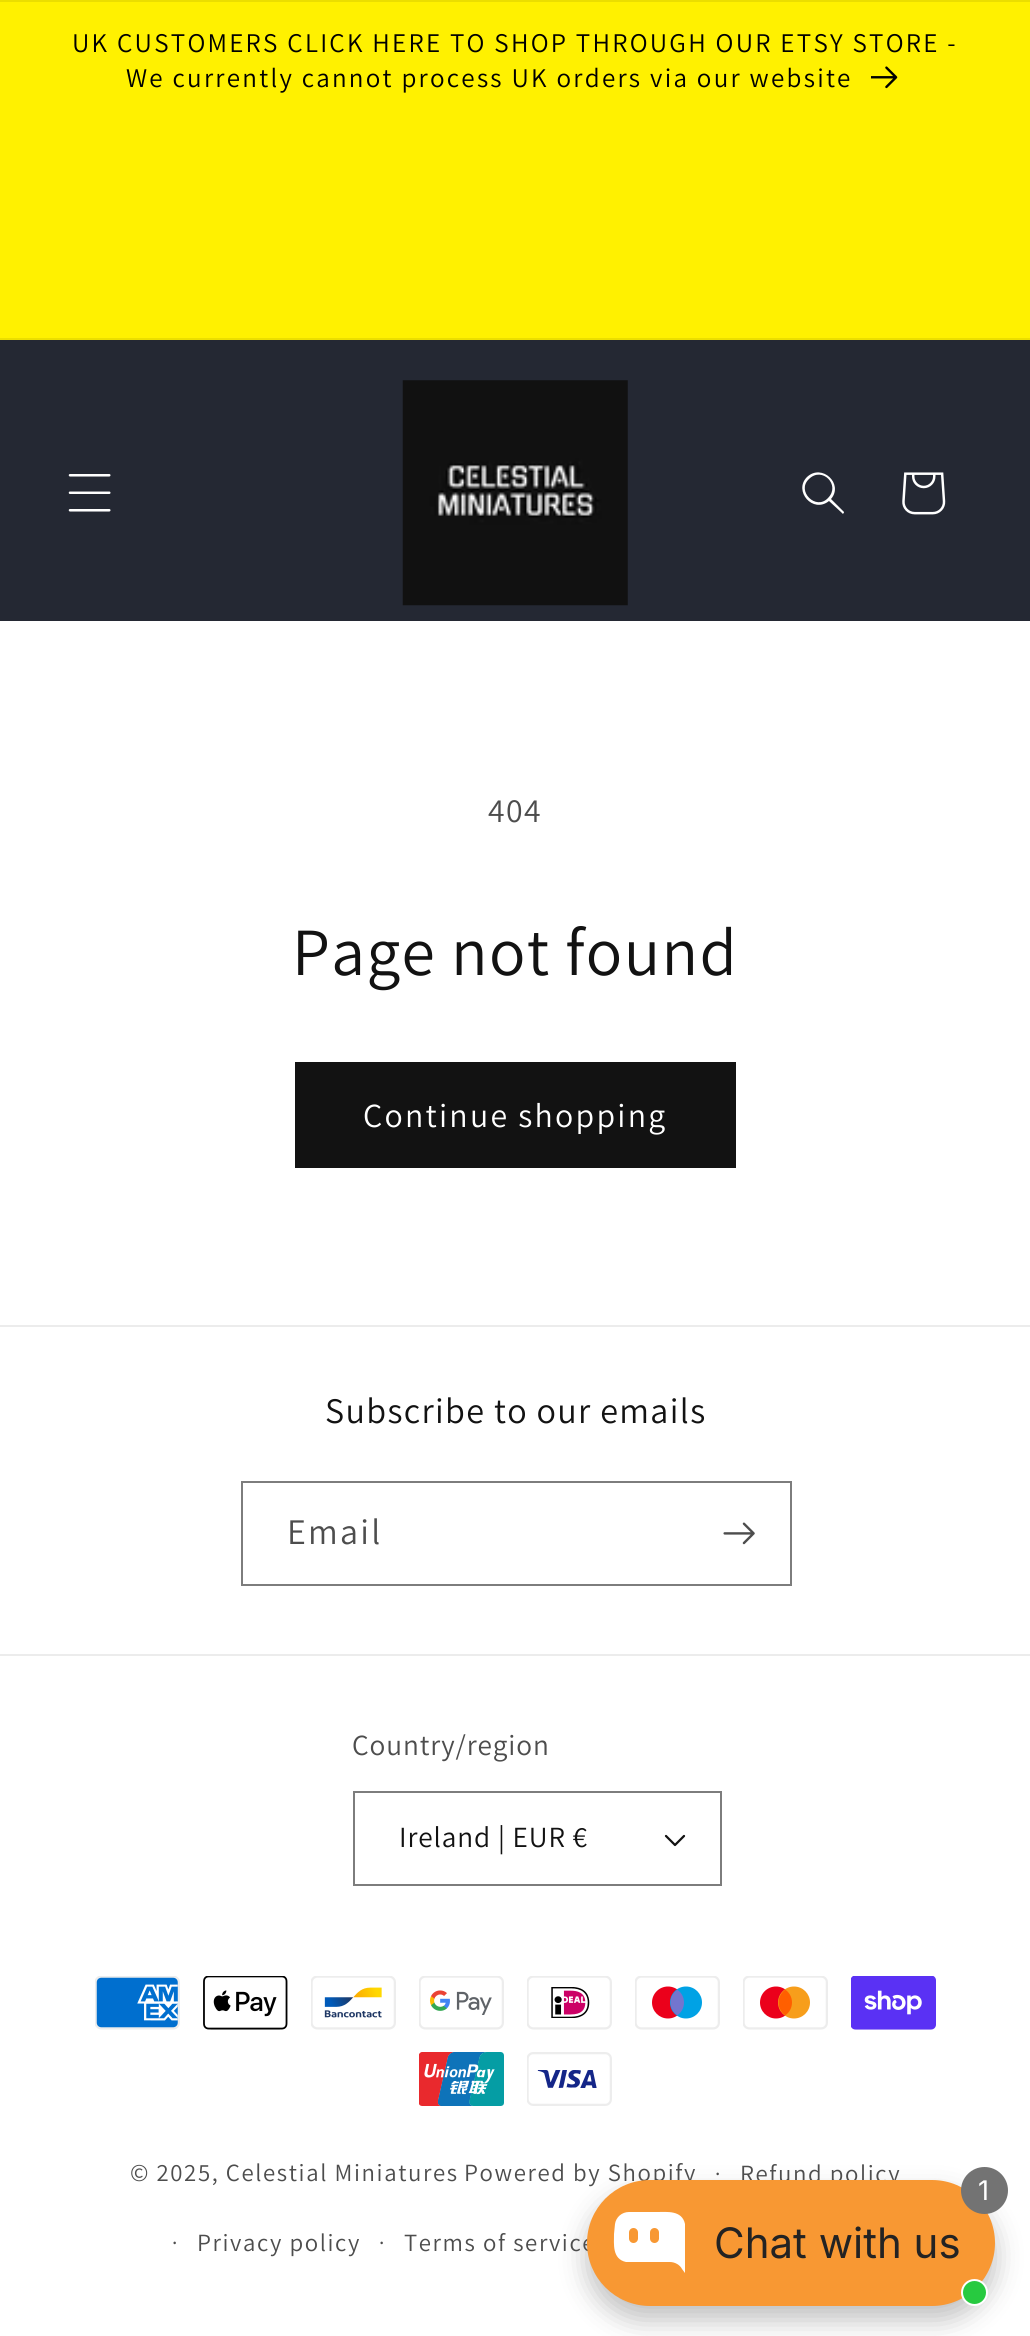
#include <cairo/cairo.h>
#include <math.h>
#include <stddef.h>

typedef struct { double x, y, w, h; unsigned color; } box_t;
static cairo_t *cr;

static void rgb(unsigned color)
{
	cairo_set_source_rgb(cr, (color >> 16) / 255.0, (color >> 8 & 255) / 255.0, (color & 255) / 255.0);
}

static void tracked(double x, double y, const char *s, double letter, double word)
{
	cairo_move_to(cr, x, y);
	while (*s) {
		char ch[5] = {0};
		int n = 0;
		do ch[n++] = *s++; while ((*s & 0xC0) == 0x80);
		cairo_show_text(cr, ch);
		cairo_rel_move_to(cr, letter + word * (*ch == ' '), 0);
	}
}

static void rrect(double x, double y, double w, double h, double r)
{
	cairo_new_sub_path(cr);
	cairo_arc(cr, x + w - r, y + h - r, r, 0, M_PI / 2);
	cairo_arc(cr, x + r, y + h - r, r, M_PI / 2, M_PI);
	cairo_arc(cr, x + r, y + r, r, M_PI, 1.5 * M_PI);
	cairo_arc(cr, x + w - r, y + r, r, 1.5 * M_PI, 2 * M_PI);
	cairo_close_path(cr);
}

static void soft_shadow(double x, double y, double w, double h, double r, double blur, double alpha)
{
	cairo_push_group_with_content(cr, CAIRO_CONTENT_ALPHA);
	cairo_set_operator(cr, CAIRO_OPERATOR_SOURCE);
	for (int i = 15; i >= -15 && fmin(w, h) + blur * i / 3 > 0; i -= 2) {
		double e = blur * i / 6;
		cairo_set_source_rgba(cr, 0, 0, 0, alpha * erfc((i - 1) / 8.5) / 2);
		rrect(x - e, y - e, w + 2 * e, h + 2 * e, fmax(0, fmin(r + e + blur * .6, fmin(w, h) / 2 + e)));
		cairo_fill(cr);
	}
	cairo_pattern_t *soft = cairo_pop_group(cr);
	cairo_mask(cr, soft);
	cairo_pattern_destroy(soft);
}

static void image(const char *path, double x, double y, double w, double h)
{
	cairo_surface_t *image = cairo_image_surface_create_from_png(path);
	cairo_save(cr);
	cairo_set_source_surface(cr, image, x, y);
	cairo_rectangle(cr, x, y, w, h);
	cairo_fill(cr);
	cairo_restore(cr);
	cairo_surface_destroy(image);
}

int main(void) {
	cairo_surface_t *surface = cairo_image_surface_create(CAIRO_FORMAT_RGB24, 1030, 2336);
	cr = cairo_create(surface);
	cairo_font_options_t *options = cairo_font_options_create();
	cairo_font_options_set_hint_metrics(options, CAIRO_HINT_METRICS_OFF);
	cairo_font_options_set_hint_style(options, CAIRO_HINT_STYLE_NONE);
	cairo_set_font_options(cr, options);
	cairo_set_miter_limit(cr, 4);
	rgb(0xffffff);
	cairo_paint(cr);
	{
		static const box_t items[] = {
			{0, 0, 1030, 2, 0xebde00},
			{0, 2, 1030, 336, 0xfff100},
			{0, 338, 1030, 2, 0xebde00},
		};
		for (size_t i = 0; i < sizeof items / sizeof *items; i++) {
			rgb(items[i].color);
			cairo_rectangle(cr, items[i].x, items[i].y, items[i].w, items[i].h);
			cairo_fill(cr);
		}
	}
	image("img/1.png", 871, 66, 27, 23);
	rgb(0x242833);
	cairo_rectangle(cr, 0, 340, 1030, 281);
	cairo_fill(cr);
	image("img/2.png", 68, 474, 43, 38);
	image("img/3.png", 402, 380, 226, 226);
	rgb(0xffffff);
	cairo_set_fill_rule(cr, CAIRO_FILL_RULE_EVEN_ODD);
	cairo_new_path(cr);
	cairo_move_to(cr, 828, 498);
	cairo_curve_to(cr, 816, 511, 796, 491, 809, 479);
	cairo_curve_to(cr, 822, 466, 841, 485, 828, 498);
	cairo_move_to(cr, 829, 501);
	cairo_curve_to(cr, 813, 514, 793, 491, 807, 477);
	cairo_curve_to(cr, 822, 463, 844, 484, 831, 499);
	cairo_line_to(cr, 844, 512);
	cairo_curve_to(cr, 844, 514, 842, 514, 842, 513);
	cairo_close_path(cr);
	cairo_fill(cr);
	image("img/4.png", 902, 472, 44, 43);
	rgb(0x121212);
	cairo_rectangle(cr, 295, 1062, 441, 106);
	cairo_fill(cr);
	rgb(0xececec);
	cairo_rectangle(cr, 0, 1325, 1030, 2);
	cairo_fill(cr);
	cairo_rectangle(cr, 242, 1482, 549, 103);
	rgb(0x7d7d7d);
	cairo_stroke(cr);
	image("img/5.png", 723, 1522, 32, 23);
	rgb(0xececec);
	cairo_rectangle(cr, 0, 1654, 1030, 2);
	cairo_fill(cr);
	image("img/6.png", 664, 1834, 22, 13);
	cairo_rectangle(cr, 354, 1792, 367, 93);
	rgb(0x7d7d7d);
	cairo_stroke(cr);
	image("img/7.png", 95, 1976, 85, 54);
	image("img/8.png", 203, 1976, 85, 54);
	image("img/9.png", 311, 1976, 85, 54);
	image("img/10.png", 419, 1976, 85, 54);
	image("img/11.png", 527, 1976, 85, 54);
	image("img/12.png", 635, 1976, 85, 54);
	image("img/13.png", 743, 1976, 85, 54);
	image("img/14.png", 851, 1976, 85, 54);
	image("img/15.png", 419, 2052, 85, 54);
	image("img/16.png", 527, 2052, 85, 54);
	rgb(0x000000);
	soft_shadow(587, 2194, 408, 126, 63, 13.5, 0.25);
	cairo_select_font_face(cr, "Assistant", CAIRO_FONT_SLANT_NORMAL, CAIRO_FONT_WEIGHT_NORMAL);
	cairo_set_font_size(cr, 27);
	rgb(0x000000);
	tracked(72, 52, "UK CUSTOMERS CLICK HERE TO SHOP THROUGH OUR ETSY STORE -", 2.25, 0);
	tracked(126, 87, "We currently cannot process UK orders via our website", 2.25, 0);
	cairo_set_font_size(cr, 33.75);
	rgb(0x4d4d4d);
	tracked(488, 822, "404", 1.35, 0);
	cairo_set_font_size(cr, 67.5);
	rgb(0x121212);
	tracked(292, 975, "Page not found", 1.35, 0);
	cairo_set_font_size(cr, 33.75);
	rgb(0xffffff);
	tracked(363, 1127, "Continue shopping", 2.25, 0);
	cairo_set_font_size(cr, 36);
	rgb(0x121212);
	tracked(325, 1423, "Subscribe to our emails", 1.35, 0);
	rgb(0x4d4d4d);
	tracked(287, 1544, "Email", 2.25, 0);
	cairo_set_font_size(cr, 29.25);
	tracked(352, 1755, "Country/region", 0.9, 0);
	rgb(0x121212);
	tracked(399, 1847, "Ireland | EUR €", 0.9, 0);
	cairo_set_font_size(cr, 24.75);
	rgb(0x4d4d4d);
	tracked(130, 2181, "© 2025, Celestial Miniatures", 1.6, 0);
	tracked(464, 2181, "Powered by Shopify", 1.6, 0);
	cairo_set_font_size(cr, 22);
	tracked(715, 2181, "·", 1.6, 0);
	cairo_set_font_size(cr, 24.75);
	tracked(740, 2182, "Refund policy", 1.6, 0);
	cairo_set_font_size(cr, 22);
	tracked(172, 2250, "·", 1.6, 0);
	cairo_set_font_size(cr, 24.75);
	tracked(197, 2251, "Privacy policy", 1.6, 0);
	cairo_set_font_size(cr, 22);
	tracked(379, 2250, "·", 1.6, 0);
	cairo_set_font_size(cr, 24.75);
	tracked(404, 2251, "Terms of service", 1.6, 0);
	rgb(0xf89833);
	rrect(587, 2180, 408, 126, 63);
	cairo_fill(cr);
	rgb(0x737373);
	cairo_arc(cr, 984.5, 2190.5, 23.5, 0, 2 * M_PI);
	cairo_fill(cr);
	cairo_select_font_face(cr, "Inter", CAIRO_FONT_SLANT_NORMAL, CAIRO_FONT_WEIGHT_NORMAL);
	cairo_set_font_size(cr, 27);
	rgb(0xffffff);
	tracked(978, 2200, "1", 1.35, 0);
	cairo_new_path(cr);
	cairo_move_to(cr, 629, 2212);
	cairo_curve_to(cr, 622, 2212, 616, 2217, 615, 2224);
	cairo_line_to(cr, 614, 2234);
	cairo_curve_to(cr, 614, 2244, 612, 2259, 626, 2262);
	cairo_line_to(cr, 670, 2262);
	cairo_curve_to(cr, 675, 2262, 680, 2265, 682, 2269);
	cairo_line_to(cr, 685, 2273);
	cairo_line_to(cr, 685, 2224);
	cairo_curve_to(cr, 682, 2210, 667, 2212, 657, 2212);
	cairo_close_path(cr);
	cairo_fill(cr);
	rgb(0xf89833);
	rrect(629, 2228, 9, 15, 4.5);
	cairo_fill(cr);
	rrect(650, 2228, 9, 15, 4.5);
	cairo_fill(cr);
	cairo_set_font_size(cr, 42);
	rgb(0x232323);
	cairo_move_to(cr, 714, 2258);
	cairo_show_text(cr, "Chat with us");
	rgb(0x27ca40);
	cairo_new_path(cr);
	cairo_arc(cr, 974.5, 2292.5, 12.5, 0, 2 * M_PI);
	cairo_fill_preserve(cr);
	rgb(0xffffff);
	cairo_stroke(cr);
	cairo_surface_write_to_png(surface, "page.png");
	cairo_font_options_destroy(options);
	cairo_destroy(cr);
	cairo_surface_destroy(surface);
	return 0;
}
